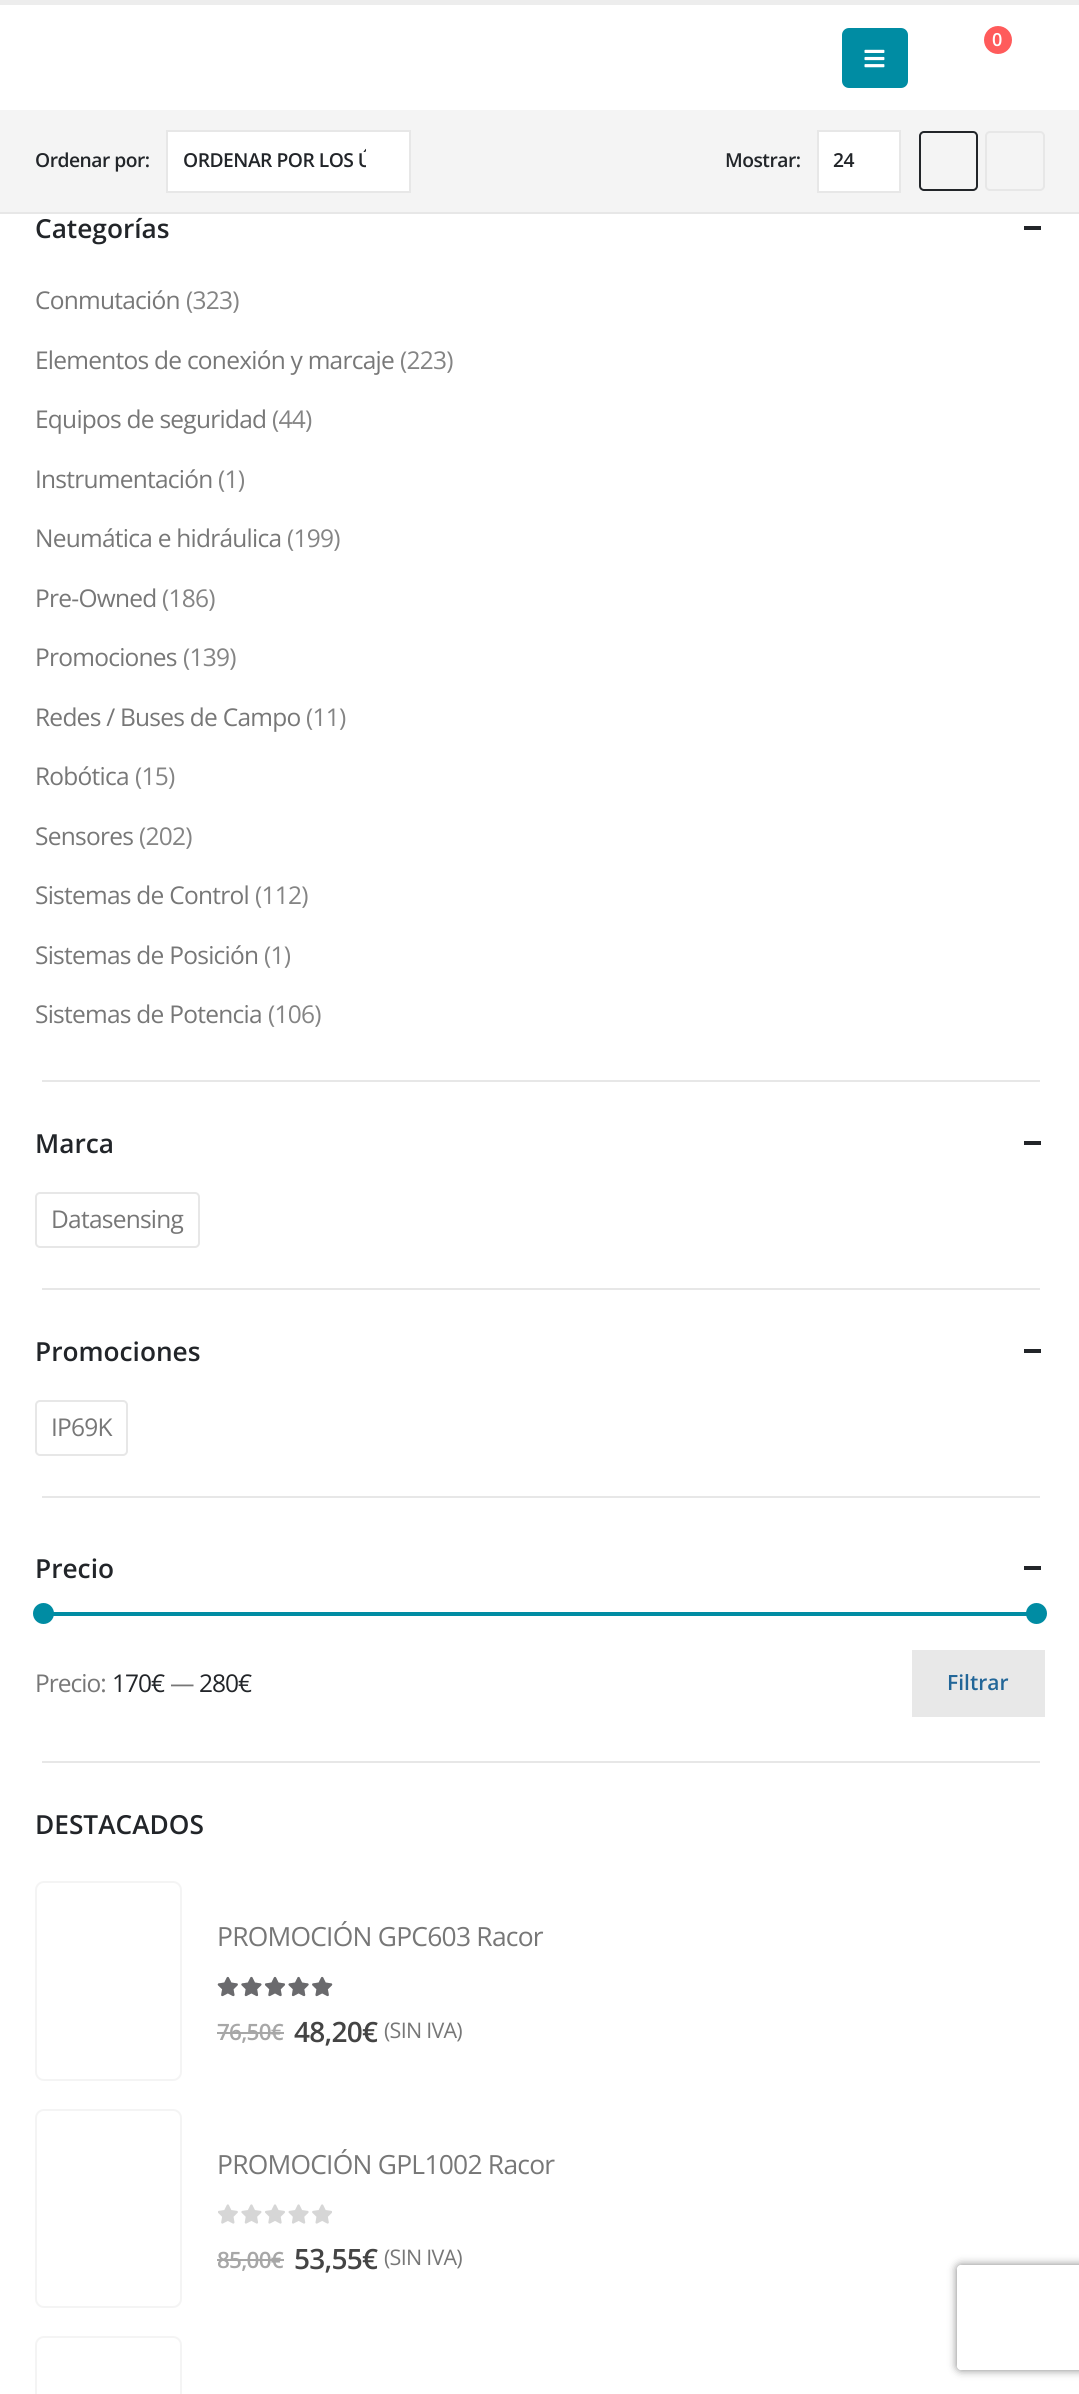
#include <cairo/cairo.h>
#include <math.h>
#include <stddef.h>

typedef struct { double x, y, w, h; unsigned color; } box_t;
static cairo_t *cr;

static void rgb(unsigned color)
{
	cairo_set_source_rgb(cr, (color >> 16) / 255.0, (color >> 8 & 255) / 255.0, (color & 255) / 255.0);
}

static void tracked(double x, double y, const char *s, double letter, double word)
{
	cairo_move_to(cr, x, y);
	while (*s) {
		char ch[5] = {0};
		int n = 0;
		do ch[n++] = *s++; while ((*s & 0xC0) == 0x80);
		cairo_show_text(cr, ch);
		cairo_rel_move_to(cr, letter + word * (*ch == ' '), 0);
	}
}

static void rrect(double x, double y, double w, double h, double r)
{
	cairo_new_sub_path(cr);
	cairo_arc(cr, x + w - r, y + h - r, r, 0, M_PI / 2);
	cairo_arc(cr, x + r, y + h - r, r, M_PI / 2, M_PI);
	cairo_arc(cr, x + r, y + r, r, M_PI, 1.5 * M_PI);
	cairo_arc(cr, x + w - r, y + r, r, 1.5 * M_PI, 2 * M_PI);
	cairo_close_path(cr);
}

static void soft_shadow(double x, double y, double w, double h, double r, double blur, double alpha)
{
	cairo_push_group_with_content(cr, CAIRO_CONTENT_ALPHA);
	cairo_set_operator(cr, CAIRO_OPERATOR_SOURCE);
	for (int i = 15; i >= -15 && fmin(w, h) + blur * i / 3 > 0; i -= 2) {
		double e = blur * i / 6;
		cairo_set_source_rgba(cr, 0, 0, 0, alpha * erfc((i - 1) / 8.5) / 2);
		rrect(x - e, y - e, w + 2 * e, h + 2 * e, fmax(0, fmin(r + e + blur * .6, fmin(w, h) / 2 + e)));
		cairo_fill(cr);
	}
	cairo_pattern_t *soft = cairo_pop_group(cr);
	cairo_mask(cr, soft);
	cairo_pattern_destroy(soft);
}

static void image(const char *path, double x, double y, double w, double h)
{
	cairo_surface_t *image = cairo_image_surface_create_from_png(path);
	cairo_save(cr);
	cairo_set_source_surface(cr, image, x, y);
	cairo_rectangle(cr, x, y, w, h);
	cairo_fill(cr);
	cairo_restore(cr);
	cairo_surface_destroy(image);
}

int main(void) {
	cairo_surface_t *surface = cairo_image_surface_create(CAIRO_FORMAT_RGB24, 1079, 2394);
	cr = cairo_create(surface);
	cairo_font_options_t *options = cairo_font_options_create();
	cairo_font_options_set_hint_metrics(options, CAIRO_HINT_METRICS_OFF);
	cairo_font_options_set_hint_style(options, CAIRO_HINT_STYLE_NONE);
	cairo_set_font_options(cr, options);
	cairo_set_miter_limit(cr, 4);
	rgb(0xffffff);
	cairo_paint(cr);
	rgb(0xededed);
	cairo_rectangle(cr, 0, 0, 1079, 5);
	cairo_fill(cr);
	rgb(0x008ca3);
	rrect(842, 28, 66, 60, 7);
	cairo_fill(cr);
	image("img/1.png", 864, 49, 21, 19);
	rgb(0xff5b5b);
	cairo_arc(cr, 998, 40, 14, 0, 2 * M_PI);
	cairo_fill(cr);
	rgb(0xf4f4f4);
	cairo_rectangle(cr, 0, 110, 1079, 102);
	cairo_fill(cr);
	rgb(0xe7e7e7);
	cairo_rectangle(cr, 0, 212, 1079, 2);
	cairo_fill(cr);
	rgb(0xffffff);
	cairo_rectangle(cr, 167, 131, 243, 61);
	cairo_fill_preserve(cr);
	rgb(0xe7e7e7);
	cairo_stroke(cr);
	rgb(0xffffff);
	cairo_rectangle(cr, 818, 131, 82, 61);
	cairo_fill_preserve(cr);
	rgb(0xe7e7e7);
	cairo_stroke(cr);
	rrect(920, 132, 57, 58, 4);
	rgb(0x222529);
	cairo_stroke(cr);
	rrect(986, 132, 58, 58, 4);
	rgb(0xe7e7e7);
	cairo_stroke(cr);
	{
		static const box_t items[] = {
			{42, 1080, 998, 2, 0xe7e7e7},
			{1024, 226, 17, 4, 0x222529},
			{42, 1288, 998, 2, 0xe7e7e7},
			{1024, 1141, 17, 4, 0x222529},
		};
		for (size_t i = 0; i < sizeof items / sizeof *items; i++) {
			rgb(items[i].color);
			cairo_rectangle(cr, items[i].x, items[i].y, items[i].w, items[i].h);
			cairo_fill(cr);
		}
	}
	rrect(36, 1193, 163, 54, 4);
	rgb(0xe7e7e7);
	cairo_stroke(cr);
	cairo_rectangle(cr, 42, 1496, 998, 2);
	cairo_fill(cr);
	rgb(0x222529);
	cairo_rectangle(cr, 1024, 1349, 17, 4);
	cairo_fill(cr);
	rrect(36, 1401, 91, 54, 4);
	rgb(0xe7e7e7);
	cairo_stroke(cr);
	{
		static const box_t items[] = {
			{42, 1761, 998, 2, 0xe7e7e7},
			{1024, 1566, 17, 4, 0x222529},
			{53, 1612, 974, 4, 0x008ca3},
		};
		for (size_t i = 0; i < sizeof items / sizeof *items; i++) {
			rgb(items[i].color);
			cairo_rectangle(cr, items[i].x, items[i].y, items[i].w, items[i].h);
			cairo_fill(cr);
		}
	}
	cairo_arc(cr, 43.5, 1613.5, 10.5, 0, 2 * M_PI);
	cairo_fill(cr);
	cairo_arc(cr, 1036.5, 1613.5, 10.5, 0, 2 * M_PI);
	cairo_fill(cr);
	rgb(0xe8e8e8);
	cairo_rectangle(cr, 912, 1650, 133, 67);
	cairo_fill(cr);
	rrect(36, 1882, 145, 198, 8);
	rgb(0xf4f4f4);
	cairo_stroke(cr);
	image("img/3.png", 217, 1977, 116, 19);
	image("img/2.png", 217, 1976, 116, 21);
	rgb(0xa7a7a7);
	cairo_rectangle(cr, 217, 2032, 67, 2);
	cairo_fill(cr);
	rrect(36, 2110, 145, 197, 8);
	rgb(0xf4f4f4);
	cairo_stroke(cr);
	image("img/4.png", 218, 2204, 114, 20);
	rgb(0xa7a7a7);
	cairo_rectangle(cr, 217, 2259, 67, 2);
	cairo_fill(cr);
	rrect(36, 2337, 145, 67, 8);
	rgb(0xf4f4f4);
	cairo_stroke(cr);
	cairo_save(cr);
	cairo_set_fill_rule(cr, CAIRO_FILL_RULE_EVEN_ODD);
	cairo_new_path(cr);
	cairo_move_to(cr, 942, 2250);
	cairo_line_to(cr, 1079, 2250);
	cairo_line_to(cr, 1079, 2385);
	cairo_line_to(cr, 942, 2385);
	cairo_close_path(cr);
	cairo_move_to(cr, 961, 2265);
	cairo_line_to(cr, 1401, 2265);
	cairo_curve_to(cr, 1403, 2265, 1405, 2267, 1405, 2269);
	cairo_line_to(cr, 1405, 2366);
	cairo_curve_to(cr, 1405, 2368, 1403, 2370, 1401, 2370);
	cairo_line_to(cr, 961, 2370);
	cairo_curve_to(cr, 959, 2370, 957, 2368, 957, 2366);
	cairo_line_to(cr, 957, 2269);
	cairo_curve_to(cr, 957, 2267, 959, 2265, 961, 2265);
	cairo_close_path(cr);
	cairo_clip(cr);
	rgb(0x808080);
	soft_shadow(957, 2265, 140, 105, 4, 4.5, 1);
	cairo_restore(cr);
	cairo_select_font_face(cr, "Open Sans SemiBold", CAIRO_FONT_SLANT_NORMAL, CAIRO_FONT_WEIGHT_NORMAL);
	cairo_set_font_size(cr, 18);
	rgb(0xffffff);
	cairo_move_to(cr, 992, 46);
	cairo_show_text(cr, "0");
	cairo_set_font_size(cr, 19.25);
	rgb(0x222529);
	tracked(35, 167, "Ordenar por:", -0.5, 0);
	cairo_save(cr);
	cairo_rectangle(cr, 182, 147, 184, 26);
	cairo_clip(cr);
	tracked(183, 167, "ORDENAR POR LOS Ú", -0.5, 0);
	cairo_restore(cr);
	tracked(725, 167, "Mostrar:", -0.5, 0);
	tracked(833, 167, "24", -0.5, 0);
	cairo_set_font_size(cr, 26.25);
	cairo_move_to(cr, 35, 238);
	cairo_show_text(cr, "Categorías");
	cairo_select_font_face(cr, "Open Sans", CAIRO_FONT_SLANT_NORMAL, CAIRO_FONT_WEIGHT_NORMAL);
	cairo_set_font_size(cr, 24.5);
	rgb(0x777777);
	tracked(35, 309, "Conmutación", -0.75, 0);
	rgb(0x848484);
	tracked(186, 309, "(323)", -0.75, 0);
	rgb(0x777777);
	tracked(35, 369, "Elementos de conexión y marcaje", -0.75, 0);
	rgb(0x848484);
	tracked(400, 369, "(223)", -0.75, 0);
	rgb(0x777777);
	tracked(35, 428, "Equipos de seguridad", -0.75, 0);
	rgb(0x848484);
	tracked(272, 428, "(44)", -0.75, 0);
	rgb(0x777777);
	tracked(35, 488, "Instrumentación", -0.75, 0);
	rgb(0x848484);
	tracked(218, 488, "(1)", -0.75, 0);
	rgb(0x777777);
	tracked(35, 547, "Neumática e hidráulica", -0.75, 0);
	rgb(0x848484);
	tracked(287, 547, "(199)", -0.75, 0);
	rgb(0x777777);
	tracked(35, 607, "Pre-Owned", -0.75, 0);
	rgb(0x848484);
	tracked(162, 607, "(186)", -0.75, 0);
	rgb(0x777777);
	tracked(35, 666, "Promociones", -0.75, 0);
	rgb(0x848484);
	tracked(183, 666, "(139)", -0.75, 0);
	rgb(0x777777);
	tracked(35, 726, "Redes / Buses de Campo", -0.75, 0);
	rgb(0x848484);
	tracked(306, 726, "(11)", -0.75, 0);
	rgb(0x777777);
	tracked(35, 785, "Robótica", -0.75, 0);
	rgb(0x848484);
	tracked(135, 785, "(15)", -0.75, 0);
	rgb(0x777777);
	tracked(35, 845, "Sensores", -0.75, 0);
	rgb(0x848484);
	tracked(139, 845, "(202)", -0.75, 0);
	rgb(0x777777);
	tracked(35, 904, "Sistemas de Control", -0.75, 0);
	rgb(0x848484);
	tracked(255, 904, "(112)", -0.75, 0);
	rgb(0x777777);
	tracked(35, 964, "Sistemas de Posición", -0.75, 0);
	rgb(0x848484);
	tracked(264, 964, "(1)", -0.75, 0);
	rgb(0x777777);
	tracked(35, 1023, "Sistemas de Potencia", -0.75, 0);
	rgb(0x848484);
	tracked(268, 1023, "(106)", -0.75, 0);
	cairo_select_font_face(cr, "Open Sans SemiBold", CAIRO_FONT_SLANT_NORMAL, CAIRO_FONT_WEIGHT_NORMAL);
	cairo_set_font_size(cr, 26.25);
	rgb(0x222529);
	cairo_move_to(cr, 35, 1153);
	cairo_show_text(cr, "Marca");
	cairo_select_font_face(cr, "Open Sans", CAIRO_FONT_SLANT_NORMAL, CAIRO_FONT_WEIGHT_NORMAL);
	cairo_set_font_size(cr, 24.5);
	rgb(0x777777);
	tracked(51, 1228, "Datasensing", -0.75, 0);
	cairo_select_font_face(cr, "Open Sans SemiBold", CAIRO_FONT_SLANT_NORMAL, CAIRO_FONT_WEIGHT_NORMAL);
	cairo_set_font_size(cr, 26.25);
	rgb(0x222529);
	cairo_move_to(cr, 35, 1361);
	cairo_show_text(cr, "Promociones");
	cairo_select_font_face(cr, "Open Sans", CAIRO_FONT_SLANT_NORMAL, CAIRO_FONT_WEIGHT_NORMAL);
	cairo_set_font_size(cr, 24.5);
	rgb(0x777777);
	tracked(51, 1436, "IP69K", -0.75, 0);
	cairo_select_font_face(cr, "Open Sans SemiBold", CAIRO_FONT_SLANT_NORMAL, CAIRO_FONT_WEIGHT_NORMAL);
	cairo_set_font_size(cr, 26.25);
	rgb(0x222529);
	cairo_move_to(cr, 35, 1578);
	cairo_show_text(cr, "Precio");
	cairo_select_font_face(cr, "Open Sans", CAIRO_FONT_SLANT_NORMAL, CAIRO_FONT_WEIGHT_NORMAL);
	cairo_set_font_size(cr, 24.5);
	rgb(0x777777);
	tracked(35, 1692, "Precio:", -1, 0);
	rgb(0x222529);
	tracked(112, 1692, "170€", -1, 0);
	rgb(0x777777);
	tracked(170, 1692, "—", -1, 0);
	rgb(0x222529);
	tracked(199, 1692, "280€", -1, 0);
	cairo_select_font_face(cr, "Open Sans SemiBold", CAIRO_FONT_SLANT_NORMAL, CAIRO_FONT_WEIGHT_NORMAL);
	cairo_set_font_size(cr, 21);
	rgb(0x226698);
	cairo_move_to(cr, 947, 1690);
	cairo_show_text(cr, "Filtrar");
	cairo_set_font_size(cr, 26.25);
	rgb(0x222529);
	cairo_move_to(cr, 35, 1834);
	cairo_show_text(cr, "DESTACADOS");
	cairo_select_font_face(cr, "Open Sans", CAIRO_FONT_SLANT_NORMAL, CAIRO_FONT_WEIGHT_NORMAL);
	cairo_set_font_size(cr, 26.4);
	rgb(0x777777);
	tracked(217, 1946, "PROMOCIÓN GPC603 Racor", -0.75, 0);
	cairo_select_font_face(cr, "Open Sans SemiBold", CAIRO_FONT_SLANT_NORMAL, CAIRO_FONT_WEIGHT_NORMAL);
	cairo_set_font_size(cr, 22.5);
	rgb(0xa7a7a7);
	tracked(217, 2040, "76,50€", -0.75, 0);
	cairo_set_font_size(cr, 28);
	rgb(0x444444);
	tracked(294, 2042, "48,20€", -0.75, 0);
	cairo_select_font_face(cr, "Open Sans", CAIRO_FONT_SLANT_NORMAL, CAIRO_FONT_WEIGHT_NORMAL);
	cairo_set_font_size(cr, 21.5);
	rgb(0x777777);
	tracked(384, 2038, "(SIN IVA)", -0.75, 0);
	cairo_set_font_size(cr, 26.4);
	tracked(217, 2174, "PROMOCIÓN GPL1002 Racor", -0.75, 0);
	cairo_select_font_face(cr, "Open Sans SemiBold", CAIRO_FONT_SLANT_NORMAL, CAIRO_FONT_WEIGHT_NORMAL);
	cairo_set_font_size(cr, 22.5);
	rgb(0xa7a7a7);
	tracked(217, 2268, "85,00€", -0.75, 0);
	cairo_set_font_size(cr, 28);
	rgb(0x444444);
	tracked(294, 2269, "53,55€", -0.75, 0);
	cairo_select_font_face(cr, "Open Sans", CAIRO_FONT_SLANT_NORMAL, CAIRO_FONT_WEIGHT_NORMAL);
	cairo_set_font_size(cr, 21.5);
	rgb(0x777777);
	tracked(384, 2265, "(SIN IVA)", -0.75, 0);
	cairo_surface_write_to_png(surface, "page.png");
	cairo_font_options_destroy(options);
	cairo_destroy(cr);
	cairo_surface_destroy(surface);
	return 0;
}
